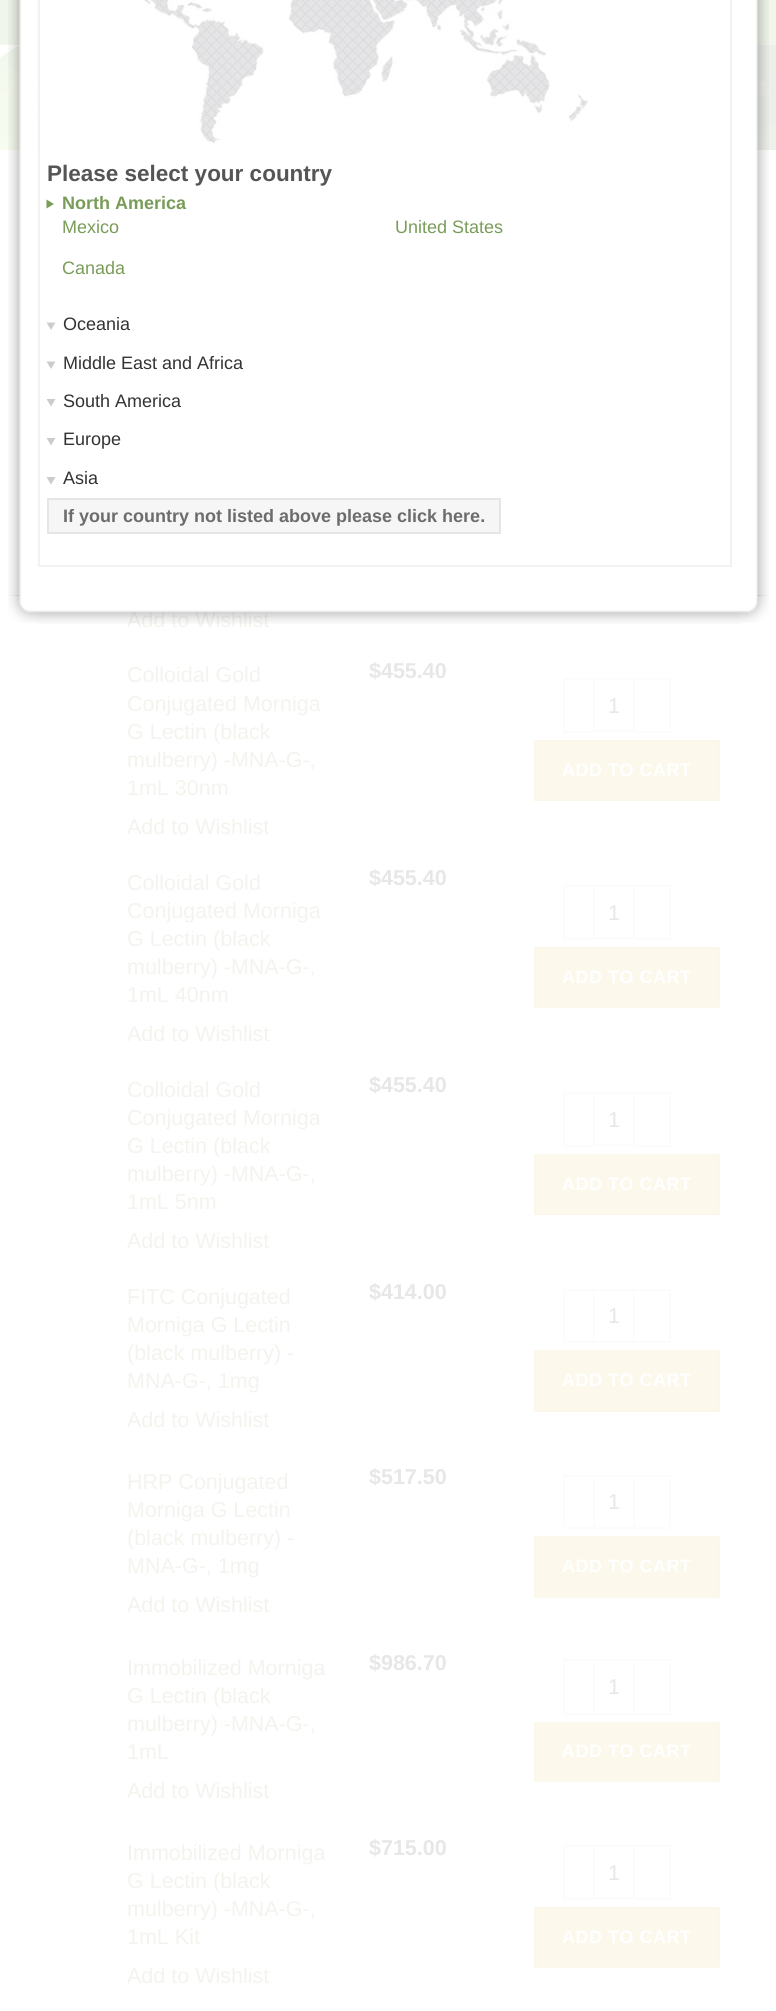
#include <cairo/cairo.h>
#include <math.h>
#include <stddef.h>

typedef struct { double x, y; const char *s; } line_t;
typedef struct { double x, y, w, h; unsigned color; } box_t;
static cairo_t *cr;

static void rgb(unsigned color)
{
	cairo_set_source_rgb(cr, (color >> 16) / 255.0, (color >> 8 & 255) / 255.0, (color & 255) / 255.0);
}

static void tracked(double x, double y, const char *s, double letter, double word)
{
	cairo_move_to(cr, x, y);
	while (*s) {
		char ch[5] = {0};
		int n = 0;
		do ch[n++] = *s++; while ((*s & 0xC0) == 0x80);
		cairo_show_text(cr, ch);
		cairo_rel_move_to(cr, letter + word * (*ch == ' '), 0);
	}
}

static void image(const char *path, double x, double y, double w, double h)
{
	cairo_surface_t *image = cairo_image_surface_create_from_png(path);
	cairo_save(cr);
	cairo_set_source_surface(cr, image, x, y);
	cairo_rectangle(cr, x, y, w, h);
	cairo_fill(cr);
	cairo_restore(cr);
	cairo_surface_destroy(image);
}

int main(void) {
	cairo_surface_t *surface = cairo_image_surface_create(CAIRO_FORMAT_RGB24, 776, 2011);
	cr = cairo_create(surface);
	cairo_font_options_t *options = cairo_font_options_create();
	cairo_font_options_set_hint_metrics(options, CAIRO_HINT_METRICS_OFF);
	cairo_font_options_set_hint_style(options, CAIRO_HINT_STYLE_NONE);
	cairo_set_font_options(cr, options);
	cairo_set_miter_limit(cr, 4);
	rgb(0xffffff);
	cairo_paint(cr);
	rgb(0xf1f6ec);
	cairo_rectangle(cr, 0, 0, 776, 45);
	cairo_fill(cr);
	image("img/7.png", 0, 45, 776, 105);
	image("img/8.png", 37, 85, 1, 22);
	image("img/1.png", 8, 0, 30, 596);
	rgb(0xffffff);
	cairo_rectangle(cr, 38, 0, 702, 150);
	cairo_fill(cr);
	cairo_rectangle(cr, 39, -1, 692, 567);
	rgb(0xf2f2f2);
	cairo_stroke(cr);
	image("img/2.png", 144, 0, 444, 144);
	rgb(0x7a9c59);
	cairo_new_path(cr);
	cairo_move_to(cr, 46.5, 208.5);
	cairo_line_to(cr, 46.5, 199.5);
	cairo_line_to(cr, 54, 204);
	cairo_close_path(cr);
	cairo_fill(cr);
	rgb(0xcccccc);
	cairo_new_path(cr);
	cairo_move_to(cr, 46.5, 322.5);
	cairo_line_to(cr, 55.5, 322.5);
	cairo_line_to(cr, 51, 330);
	cairo_close_path(cr);
	cairo_fill(cr);
	cairo_new_path(cr);
	cairo_move_to(cr, 46.5, 361.5);
	cairo_line_to(cr, 55.5, 361.5);
	cairo_line_to(cr, 51, 369);
	cairo_close_path(cr);
	cairo_fill(cr);
	cairo_new_path(cr);
	cairo_move_to(cr, 46.5, 399);
	cairo_line_to(cr, 55.5, 399);
	cairo_line_to(cr, 51, 406.5);
	cairo_close_path(cr);
	cairo_fill(cr);
	cairo_new_path(cr);
	cairo_move_to(cr, 46.5, 438);
	cairo_line_to(cr, 55.5, 438);
	cairo_line_to(cr, 51, 445.5);
	cairo_close_path(cr);
	cairo_fill(cr);
	cairo_new_path(cr);
	cairo_move_to(cr, 46.5, 477);
	cairo_line_to(cr, 55.5, 477);
	cairo_line_to(cr, 51, 484.5);
	cairo_close_path(cr);
	cairo_fill(cr);
	rgb(0xf6f6f6);
	cairo_rectangle(cr, 48, 499, 452, 34);
	cairo_fill_preserve(cr);
	rgb(0xe5e5e5);
	cairo_stroke(cr);
	image("img/3.png", 740, 0, 29, 596);
	image("img/4.png", 8, 595, 30, 28);
	{
		static const box_t items[] = {
			{563, 678, 30, 2, 0xfcfcfc},
			{563, 731, 30, 2, 0xfcfcfc},
			{563, 678, 2, 54, 0xfcfcfc},
		};
		for (size_t i = 0; i < sizeof items / sizeof *items; i++) {
			rgb(items[i].color);
			cairo_rectangle(cr, items[i].x, items[i].y, items[i].w, items[i].h);
			cairo_fill(cr);
		}
	}
	cairo_rectangle(cr, 594, 679, 40, 52);
	cairo_stroke(cr);
	{
		static const box_t items[] = {
			{635, 678, 36, 2, 0xfcfcfc},
			{669, 678, 2, 54, 0xfcfcfc},
			{635, 731, 36, 2, 0xfcfcfc},
		};
		for (size_t i = 0; i < sizeof items / sizeof *items; i++) {
			rgb(items[i].color);
			cairo_rectangle(cr, items[i].x, items[i].y, items[i].w, items[i].h);
			cairo_fill(cr);
		}
	}
	rgb(0xfcf8eb);
	cairo_rectangle(cr, 535, 741, 184, 59);
	cairo_fill_preserve(cr);
	rgb(0xfbf7ea);
	cairo_stroke(cr);
	{
		static const box_t items[] = {
			{563, 885, 30, 2, 0xfcfcfc},
			{563, 938, 30, 2, 0xfcfcfc},
			{563, 885, 2, 54, 0xfcfcfc},
		};
		for (size_t i = 0; i < sizeof items / sizeof *items; i++) {
			rgb(items[i].color);
			cairo_rectangle(cr, items[i].x, items[i].y, items[i].w, items[i].h);
			cairo_fill(cr);
		}
	}
	cairo_rectangle(cr, 594, 886, 40, 52);
	cairo_stroke(cr);
	{
		static const box_t items[] = {
			{635, 885, 36, 2, 0xfcfcfc},
			{669, 885, 2, 54, 0xfcfcfc},
			{635, 938, 36, 2, 0xfcfcfc},
		};
		for (size_t i = 0; i < sizeof items / sizeof *items; i++) {
			rgb(items[i].color);
			cairo_rectangle(cr, items[i].x, items[i].y, items[i].w, items[i].h);
			cairo_fill(cr);
		}
	}
	rgb(0xfcf8eb);
	cairo_rectangle(cr, 535, 948, 184, 59);
	cairo_fill_preserve(cr);
	rgb(0xfbf7ea);
	cairo_stroke(cr);
	{
		static const box_t items[] = {
			{563, 1092, 30, 2, 0xfcfcfc},
			{563, 1145, 30, 2, 0xfcfcfc},
			{563, 1092, 2, 54, 0xfcfcfc},
		};
		for (size_t i = 0; i < sizeof items / sizeof *items; i++) {
			rgb(items[i].color);
			cairo_rectangle(cr, items[i].x, items[i].y, items[i].w, items[i].h);
			cairo_fill(cr);
		}
	}
	cairo_rectangle(cr, 594, 1093, 40, 52);
	cairo_stroke(cr);
	{
		static const box_t items[] = {
			{635, 1092, 36, 2, 0xfcfcfc},
			{669, 1092, 2, 54, 0xfcfcfc},
			{635, 1145, 36, 2, 0xfcfcfc},
		};
		for (size_t i = 0; i < sizeof items / sizeof *items; i++) {
			rgb(items[i].color);
			cairo_rectangle(cr, items[i].x, items[i].y, items[i].w, items[i].h);
			cairo_fill(cr);
		}
	}
	rgb(0xfcf8eb);
	cairo_rectangle(cr, 535, 1155, 184, 59);
	cairo_fill_preserve(cr);
	rgb(0xfbf7ea);
	cairo_stroke(cr);
	{
		static const box_t items[] = {
			{563, 1289, 30, 2, 0xfcfcfc},
			{563, 1341, 30, 2, 0xfcfcfc},
			{563, 1289, 2, 54, 0xfcfcfc},
		};
		for (size_t i = 0; i < sizeof items / sizeof *items; i++) {
			rgb(items[i].color);
			cairo_rectangle(cr, items[i].x, items[i].y, items[i].w, items[i].h);
			cairo_fill(cr);
		}
	}
	cairo_rectangle(cr, 594, 1290, 40, 52);
	cairo_stroke(cr);
	{
		static const box_t items[] = {
			{635, 1289, 36, 2, 0xfcfcfc},
			{669, 1289, 2, 54, 0xfcfcfc},
			{635, 1341, 36, 2, 0xfcfcfc},
		};
		for (size_t i = 0; i < sizeof items / sizeof *items; i++) {
			rgb(items[i].color);
			cairo_rectangle(cr, items[i].x, items[i].y, items[i].w, items[i].h);
			cairo_fill(cr);
		}
	}
	rgb(0xfcf8eb);
	cairo_rectangle(cr, 535, 1351, 184, 60);
	cairo_fill_preserve(cr);
	rgb(0xfbf7ea);
	cairo_stroke(cr);
	{
		static const box_t items[] = {
			{563, 1475, 30, 2, 0xfcfcfc},
			{563, 1527, 30, 2, 0xfcfcfc},
			{563, 1475, 2, 54, 0xfcfcfc},
		};
		for (size_t i = 0; i < sizeof items / sizeof *items; i++) {
			rgb(items[i].color);
			cairo_rectangle(cr, items[i].x, items[i].y, items[i].w, items[i].h);
			cairo_fill(cr);
		}
	}
	cairo_rectangle(cr, 594, 1476, 40, 52);
	cairo_stroke(cr);
	{
		static const box_t items[] = {
			{635, 1475, 36, 2, 0xfcfcfc},
			{669, 1475, 2, 54, 0xfcfcfc},
			{635, 1527, 36, 2, 0xfcfcfc},
		};
		for (size_t i = 0; i < sizeof items / sizeof *items; i++) {
			rgb(items[i].color);
			cairo_rectangle(cr, items[i].x, items[i].y, items[i].w, items[i].h);
			cairo_fill(cr);
		}
	}
	rgb(0xfcf8eb);
	cairo_rectangle(cr, 535, 1537, 184, 60);
	cairo_fill_preserve(cr);
	rgb(0xfbf7ea);
	cairo_stroke(cr);
	{
		static const box_t items[] = {
			{563, 1659, 30, 2, 0xfcfcfc},
			{563, 1713, 30, 2, 0xfcfcfc},
			{563, 1659, 2, 56, 0xfcfcfc},
		};
		for (size_t i = 0; i < sizeof items / sizeof *items; i++) {
			rgb(items[i].color);
			cairo_rectangle(cr, items[i].x, items[i].y, items[i].w, items[i].h);
			cairo_fill(cr);
		}
	}
	cairo_rectangle(cr, 594, 1660, 40, 54);
	cairo_stroke(cr);
	{
		static const box_t items[] = {
			{635, 1659, 36, 2, 0xfcfcfc},
			{669, 1659, 2, 56, 0xfcfcfc},
			{635, 1713, 36, 2, 0xfcfcfc},
		};
		for (size_t i = 0; i < sizeof items / sizeof *items; i++) {
			rgb(items[i].color);
			cairo_rectangle(cr, items[i].x, items[i].y, items[i].w, items[i].h);
			cairo_fill(cr);
		}
	}
	rgb(0xfcf8eb);
	cairo_rectangle(cr, 535, 1723, 184, 58);
	cairo_fill_preserve(cr);
	rgb(0xfbf7ea);
	cairo_stroke(cr);
	{
		static const box_t items[] = {
			{563, 1845, 30, 2, 0xfcfcfc},
			{563, 1898, 30, 2, 0xfcfcfc},
			{563, 1845, 2, 54, 0xfcfcfc},
		};
		for (size_t i = 0; i < sizeof items / sizeof *items; i++) {
			rgb(items[i].color);
			cairo_rectangle(cr, items[i].x, items[i].y, items[i].w, items[i].h);
			cairo_fill(cr);
		}
	}
	cairo_rectangle(cr, 594, 1846, 40, 52);
	cairo_stroke(cr);
	{
		static const box_t items[] = {
			{635, 1845, 36, 2, 0xfcfcfc},
			{669, 1845, 2, 54, 0xfcfcfc},
			{635, 1898, 36, 2, 0xfcfcfc},
		};
		for (size_t i = 0; i < sizeof items / sizeof *items; i++) {
			rgb(items[i].color);
			cairo_rectangle(cr, items[i].x, items[i].y, items[i].w, items[i].h);
			cairo_fill(cr);
		}
	}
	rgb(0xfcf8eb);
	cairo_rectangle(cr, 535, 1908, 184, 59);
	cairo_fill_preserve(cr);
	rgb(0xfbf7ea);
	cairo_stroke(cr);
	cairo_select_font_face(cr, "Liberation Sans", CAIRO_FONT_SLANT_NORMAL, CAIRO_FONT_WEIGHT_BOLD);
	cairo_set_font_size(cr, 22.5);
	rgb(0x555555);
	cairo_move_to(cr, 47, 181);
	cairo_show_text(cr, "Please select your country");
	cairo_set_font_size(cr, 18);
	rgb(0x7a9c59);
	cairo_move_to(cr, 62, 209);
	cairo_show_text(cr, "North America");
	cairo_select_font_face(cr, "Liberation Sans", CAIRO_FONT_SLANT_NORMAL, CAIRO_FONT_WEIGHT_NORMAL);
	{
		static const line_t items[] = {
			{62, 233, "Mexico"},
			{395, 233, "United States"},
			{62, 274, "Canada"},
		};
		for (size_t i = 0; i < sizeof items / sizeof *items; i++) {
			cairo_move_to(cr, items[i].x, items[i].y);
			cairo_show_text(cr, items[i].s);
		}
	}
	rgb(0x333333);
	{
		static const line_t items[] = {
			{63, 330, "Oceania"},
			{63, 369, "Middle East and Africa"},
			{63, 407, "South America"},
			{63, 445, "Europe"},
			{63, 484, "Asia"},
		};
		for (size_t i = 0; i < sizeof items / sizeof *items; i++) {
			cairo_move_to(cr, items[i].x, items[i].y);
			cairo_show_text(cr, items[i].s);
		}
	}
	cairo_select_font_face(cr, "Liberation Sans", CAIRO_FONT_SLANT_NORMAL, CAIRO_FONT_WEIGHT_BOLD);
	rgb(0x6c6c6d);
	cairo_move_to(cr, 63, 522);
	cairo_show_text(cr, "If your country not listed above please click here.");
	cairo_select_font_face(cr, "Liberation Sans", CAIRO_FONT_SLANT_NORMAL, CAIRO_FONT_WEIGHT_NORMAL);
	cairo_set_font_size(cr, 21.5);
	rgb(0xf2f5ee);
	cairo_move_to(cr, 127, 627);
	cairo_show_text(cr, "Add to Wishlist");
	image("img/5.png", 37, 610, 703, 14);
	image("img/6.png", 739, 595, 30, 28);
	{
		static const line_t items[] = {
			{127, 682, "Colloidal Gold"},
			{127, 711, "Conjugated Morniga"},
			{127, 739, "G Lectin (black"},
			{127, 767, "mulberry) -MNA-G-,"},
			{127, 795, "1mL 30nm"},
			{127, 834, "Add to Wishlist"},
		};
		for (size_t i = 0; i < sizeof items / sizeof *items; i++) {
			cairo_move_to(cr, items[i].x, items[i].y);
			cairo_show_text(cr, items[i].s);
		}
	}
	cairo_select_font_face(cr, "Liberation Sans", CAIRO_FONT_SLANT_NORMAL, CAIRO_FONT_WEIGHT_BOLD);
	rgb(0xe7e7e7);
	cairo_move_to(cr, 369, 678);
	cairo_show_text(cr, "$455.40");
	cairo_select_font_face(cr, "Liberation Sans", CAIRO_FONT_SLANT_NORMAL, CAIRO_FONT_WEIGHT_NORMAL);
	cairo_move_to(cr, 608, 713);
	cairo_show_text(cr, "1");
	cairo_select_font_face(cr, "Liberation Sans", CAIRO_FONT_SLANT_NORMAL, CAIRO_FONT_WEIGHT_BOLD);
	cairo_set_font_size(cr, 18);
	rgb(0xffffff);
	tracked(562, 776, "ADD TO CART", 0.5, 0);
	cairo_select_font_face(cr, "Liberation Sans", CAIRO_FONT_SLANT_NORMAL, CAIRO_FONT_WEIGHT_NORMAL);
	cairo_set_font_size(cr, 21.5);
	rgb(0xf2f5ee);
	{
		static const line_t items[] = {
			{127, 890, "Colloidal Gold"},
			{127, 918, "Conjugated Morniga"},
			{127, 946, "G Lectin (black"},
			{127, 974, "mulberry) -MNA-G-,"},
			{127, 1002, "1mL 40nm"},
			{127, 1041, "Add to Wishlist"},
		};
		for (size_t i = 0; i < sizeof items / sizeof *items; i++) {
			cairo_move_to(cr, items[i].x, items[i].y);
			cairo_show_text(cr, items[i].s);
		}
	}
	cairo_select_font_face(cr, "Liberation Sans", CAIRO_FONT_SLANT_NORMAL, CAIRO_FONT_WEIGHT_BOLD);
	rgb(0xe7e7e7);
	cairo_move_to(cr, 369, 885);
	cairo_show_text(cr, "$455.40");
	cairo_select_font_face(cr, "Liberation Sans", CAIRO_FONT_SLANT_NORMAL, CAIRO_FONT_WEIGHT_NORMAL);
	cairo_move_to(cr, 608, 920);
	cairo_show_text(cr, "1");
	cairo_select_font_face(cr, "Liberation Sans", CAIRO_FONT_SLANT_NORMAL, CAIRO_FONT_WEIGHT_BOLD);
	cairo_set_font_size(cr, 18);
	rgb(0xffffff);
	tracked(562, 983, "ADD TO CART", 0.5, 0);
	cairo_select_font_face(cr, "Liberation Sans", CAIRO_FONT_SLANT_NORMAL, CAIRO_FONT_WEIGHT_NORMAL);
	cairo_set_font_size(cr, 21.5);
	rgb(0xf2f5ee);
	{
		static const line_t items[] = {
			{127, 1097, "Colloidal Gold"},
			{127, 1125, "Conjugated Morniga"},
			{127, 1153, "G Lectin (black"},
			{127, 1181, "mulberry) -MNA-G-,"},
			{127, 1209, "1mL 5nm"},
			{127, 1248, "Add to Wishlist"},
		};
		for (size_t i = 0; i < sizeof items / sizeof *items; i++) {
			cairo_move_to(cr, items[i].x, items[i].y);
			cairo_show_text(cr, items[i].s);
		}
	}
	cairo_select_font_face(cr, "Liberation Sans", CAIRO_FONT_SLANT_NORMAL, CAIRO_FONT_WEIGHT_BOLD);
	rgb(0xe7e7e7);
	cairo_move_to(cr, 369, 1092);
	cairo_show_text(cr, "$455.40");
	cairo_select_font_face(cr, "Liberation Sans", CAIRO_FONT_SLANT_NORMAL, CAIRO_FONT_WEIGHT_NORMAL);
	cairo_move_to(cr, 608, 1127);
	cairo_show_text(cr, "1");
	cairo_select_font_face(cr, "Liberation Sans", CAIRO_FONT_SLANT_NORMAL, CAIRO_FONT_WEIGHT_BOLD);
	cairo_set_font_size(cr, 18);
	rgb(0xffffff);
	tracked(562, 1190, "ADD TO CART", 0.5, 0);
	cairo_select_font_face(cr, "Liberation Sans", CAIRO_FONT_SLANT_NORMAL, CAIRO_FONT_WEIGHT_NORMAL);
	cairo_set_font_size(cr, 21.5);
	rgb(0xf2f5ee);
	{
		static const line_t items[] = {
			{127, 1304, "FITC Conjugated"},
			{127, 1332, "Morniga G Lectin"},
			{127, 1360, "(black mulberry) -"},
			{127, 1388, "MNA-G-, 1mg"},
			{127, 1427, "Add to Wishlist"},
		};
		for (size_t i = 0; i < sizeof items / sizeof *items; i++) {
			cairo_move_to(cr, items[i].x, items[i].y);
			cairo_show_text(cr, items[i].s);
		}
	}
	cairo_select_font_face(cr, "Liberation Sans", CAIRO_FONT_SLANT_NORMAL, CAIRO_FONT_WEIGHT_BOLD);
	rgb(0xe7e7e7);
	cairo_move_to(cr, 369, 1299);
	cairo_show_text(cr, "$414.00");
	cairo_select_font_face(cr, "Liberation Sans", CAIRO_FONT_SLANT_NORMAL, CAIRO_FONT_WEIGHT_NORMAL);
	cairo_move_to(cr, 608, 1323);
	cairo_show_text(cr, "1");
	cairo_select_font_face(cr, "Liberation Sans", CAIRO_FONT_SLANT_NORMAL, CAIRO_FONT_WEIGHT_BOLD);
	cairo_set_font_size(cr, 18);
	rgb(0xffffff);
	tracked(562, 1386, "ADD TO CART", 0.5, 0);
	cairo_select_font_face(cr, "Liberation Sans", CAIRO_FONT_SLANT_NORMAL, CAIRO_FONT_WEIGHT_NORMAL);
	cairo_set_font_size(cr, 21.5);
	rgb(0xf2f5ee);
	{
		static const line_t items[] = {
			{127, 1489, "HRP Conjugated"},
			{127, 1517, "Morniga G Lectin"},
			{127, 1545, "(black mulberry) -"},
			{127, 1573, "MNA-G-, 1mg"},
			{127, 1612, "Add to Wishlist"},
		};
		for (size_t i = 0; i < sizeof items / sizeof *items; i++) {
			cairo_move_to(cr, items[i].x, items[i].y);
			cairo_show_text(cr, items[i].s);
		}
	}
	cairo_select_font_face(cr, "Liberation Sans", CAIRO_FONT_SLANT_NORMAL, CAIRO_FONT_WEIGHT_BOLD);
	rgb(0xe7e7e7);
	cairo_move_to(cr, 369, 1484);
	cairo_show_text(cr, "$517.50");
	cairo_select_font_face(cr, "Liberation Sans", CAIRO_FONT_SLANT_NORMAL, CAIRO_FONT_WEIGHT_NORMAL);
	cairo_move_to(cr, 608, 1509);
	cairo_show_text(cr, "1");
	cairo_select_font_face(cr, "Liberation Sans", CAIRO_FONT_SLANT_NORMAL, CAIRO_FONT_WEIGHT_BOLD);
	cairo_set_font_size(cr, 18);
	rgb(0xffffff);
	tracked(562, 1572, "ADD TO CART", 0.5, 0);
	cairo_select_font_face(cr, "Liberation Sans", CAIRO_FONT_SLANT_NORMAL, CAIRO_FONT_WEIGHT_NORMAL);
	cairo_set_font_size(cr, 21.5);
	rgb(0xf2f5ee);
	{
		static const line_t items[] = {
			{127, 1675, "Immobilized Morniga"},
			{127, 1703, "G Lectin (black"},
			{127, 1731, "mulberry) -MNA-G-,"},
			{127, 1759, "1mL"},
			{127, 1798, "Add to Wishlist"},
		};
		for (size_t i = 0; i < sizeof items / sizeof *items; i++) {
			cairo_move_to(cr, items[i].x, items[i].y);
			cairo_show_text(cr, items[i].s);
		}
	}
	cairo_select_font_face(cr, "Liberation Sans", CAIRO_FONT_SLANT_NORMAL, CAIRO_FONT_WEIGHT_BOLD);
	rgb(0xe7e7e7);
	cairo_move_to(cr, 369, 1670);
	cairo_show_text(cr, "$986.70");
	cairo_select_font_face(cr, "Liberation Sans", CAIRO_FONT_SLANT_NORMAL, CAIRO_FONT_WEIGHT_NORMAL);
	cairo_move_to(cr, 608, 1694);
	cairo_show_text(cr, "1");
	cairo_select_font_face(cr, "Liberation Sans", CAIRO_FONT_SLANT_NORMAL, CAIRO_FONT_WEIGHT_BOLD);
	cairo_set_font_size(cr, 18);
	rgb(0xffffff);
	tracked(562, 1757, "ADD TO CART", 0.5, 0);
	cairo_select_font_face(cr, "Liberation Sans", CAIRO_FONT_SLANT_NORMAL, CAIRO_FONT_WEIGHT_NORMAL);
	cairo_set_font_size(cr, 21.5);
	rgb(0xf2f5ee);
	{
		static const line_t items[] = {
			{127, 1860, "Immobilized Morniga"},
			{127, 1888, "G Lectin (black"},
			{127, 1916, "mulberry) -MNA-G-,"},
			{127, 1944, "1mL Kit"},
			{127, 1983, "Add to Wishlist"},
		};
		for (size_t i = 0; i < sizeof items / sizeof *items; i++) {
			cairo_move_to(cr, items[i].x, items[i].y);
			cairo_show_text(cr, items[i].s);
		}
	}
	cairo_select_font_face(cr, "Liberation Sans", CAIRO_FONT_SLANT_NORMAL, CAIRO_FONT_WEIGHT_BOLD);
	rgb(0xe7e7e7);
	cairo_move_to(cr, 369, 1855);
	cairo_show_text(cr, "$715.00");
	cairo_select_font_face(cr, "Liberation Sans", CAIRO_FONT_SLANT_NORMAL, CAIRO_FONT_WEIGHT_NORMAL);
	cairo_move_to(cr, 608, 1880);
	cairo_show_text(cr, "1");
	cairo_select_font_face(cr, "Liberation Sans", CAIRO_FONT_SLANT_NORMAL, CAIRO_FONT_WEIGHT_BOLD);
	cairo_set_font_size(cr, 18);
	rgb(0xffffff);
	tracked(562, 1943, "ADD TO CART", 0.5, 0);
	cairo_surface_write_to_png(surface, "page.png");
	cairo_font_options_destroy(options);
	cairo_destroy(cr);
	cairo_surface_destroy(surface);
	return 0;
}
